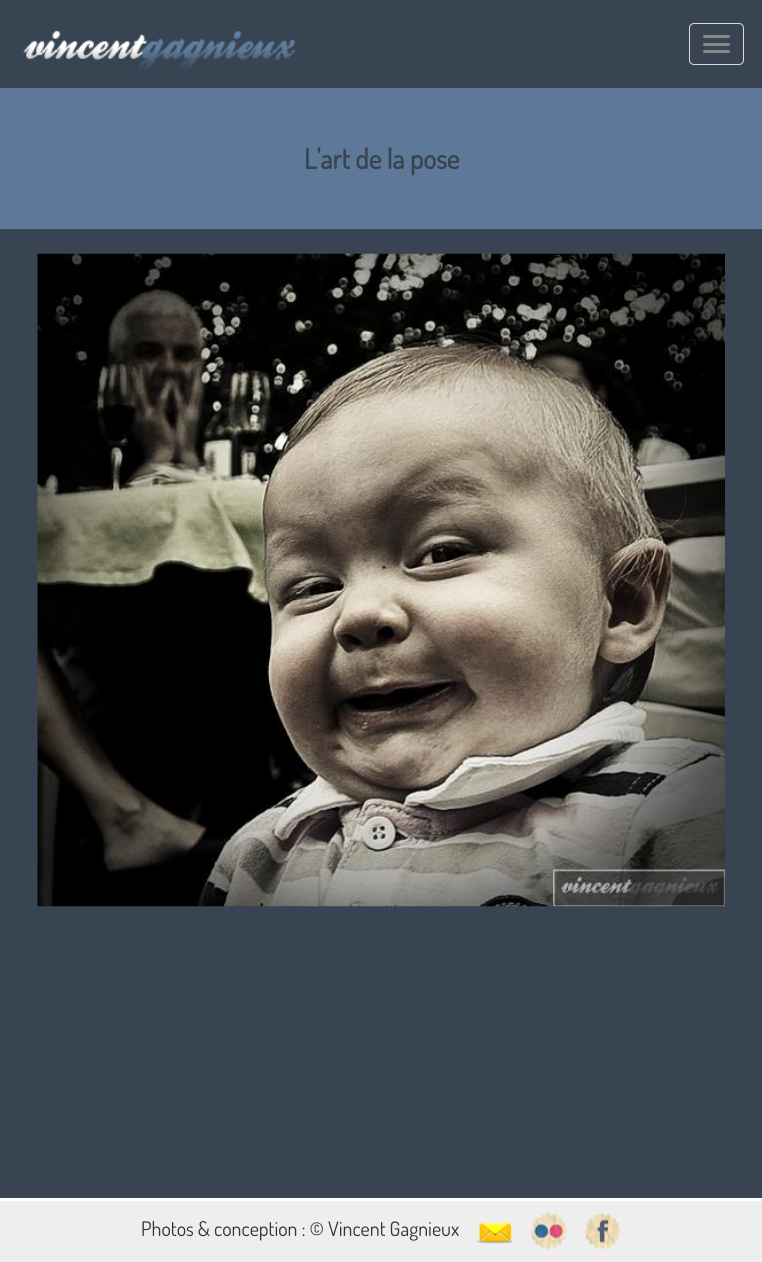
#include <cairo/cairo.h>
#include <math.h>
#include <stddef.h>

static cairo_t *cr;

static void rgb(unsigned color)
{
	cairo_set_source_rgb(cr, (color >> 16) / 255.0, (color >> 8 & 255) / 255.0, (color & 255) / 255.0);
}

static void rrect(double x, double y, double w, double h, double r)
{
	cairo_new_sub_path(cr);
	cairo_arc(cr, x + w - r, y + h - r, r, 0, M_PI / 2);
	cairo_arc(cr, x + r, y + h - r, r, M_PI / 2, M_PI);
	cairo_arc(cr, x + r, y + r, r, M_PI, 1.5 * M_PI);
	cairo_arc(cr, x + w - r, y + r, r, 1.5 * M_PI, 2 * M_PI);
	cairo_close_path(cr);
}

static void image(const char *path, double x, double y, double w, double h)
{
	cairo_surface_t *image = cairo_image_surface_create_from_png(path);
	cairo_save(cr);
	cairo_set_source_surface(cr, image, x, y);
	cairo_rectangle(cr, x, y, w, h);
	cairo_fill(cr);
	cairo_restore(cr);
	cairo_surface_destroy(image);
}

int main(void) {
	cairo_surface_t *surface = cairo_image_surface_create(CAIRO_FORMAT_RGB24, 762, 1262);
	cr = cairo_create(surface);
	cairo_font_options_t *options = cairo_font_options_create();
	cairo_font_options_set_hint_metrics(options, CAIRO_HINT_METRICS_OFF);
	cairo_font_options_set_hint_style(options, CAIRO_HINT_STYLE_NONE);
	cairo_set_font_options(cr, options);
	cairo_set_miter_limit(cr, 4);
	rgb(0x384452);
	cairo_paint(cr);
	image("img/1.png", 23, 31, 273, 39);
	rrect(689.5, 23.5, 54, 41, 4.5);
	rgb(0xdddddd);
	cairo_set_line_width(cr, 1);
	cairo_stroke(cr);
	rgb(0x888888);
	rrect(703, 35, 27, 3, 1.5);
	cairo_fill(cr);
	rrect(703, 43, 27, 3, 1.5);
	cairo_fill(cr);
	rrect(703, 50, 27, 3, 1.5);
	cairo_fill(cr);
	rgb(0x5d7997);
	cairo_rectangle(cr, 0, 88, 762, 141);
	cairo_fill(cr);
	image("img/2.png", 37, 253, 688, 654);
	rgb(0xeeeeee);
	cairo_rectangle(cr, 0, 1201, 762, 61);
	cairo_fill(cr);
	rgb(0xffffff);
	cairo_rectangle(cr, 0, 1198, 762, 3);
	cairo_fill(cr);
	image("img/3.png", 477, 1222, 36, 22);
	image("img/4.png", 530, 1212, 38, 39);
	image("img/5.png", 584, 1212, 37, 38);
	cairo_select_font_face(cr, "Dosis", CAIRO_FONT_SLANT_NORMAL, CAIRO_FONT_WEIGHT_BOLD);
	cairo_set_font_size(cr, 27.5);
	rgb(0x384452);
	cairo_move_to(cr, 304, 169);
	cairo_show_text(cr, "L'art de la pose");
	cairo_select_font_face(cr, "Dosis", CAIRO_FONT_SLANT_NORMAL, CAIRO_FONT_WEIGHT_NORMAL);
	cairo_set_font_size(cr, 20);
	rgb(0x333333);
	cairo_move_to(cr, 141, 1236);
	cairo_show_text(cr, "Photos & conception : © Vincent Gagnieux");
	cairo_surface_write_to_png(surface, "page.png");
	cairo_font_options_destroy(options);
	cairo_destroy(cr);
	cairo_surface_destroy(surface);
	return 0;
}
